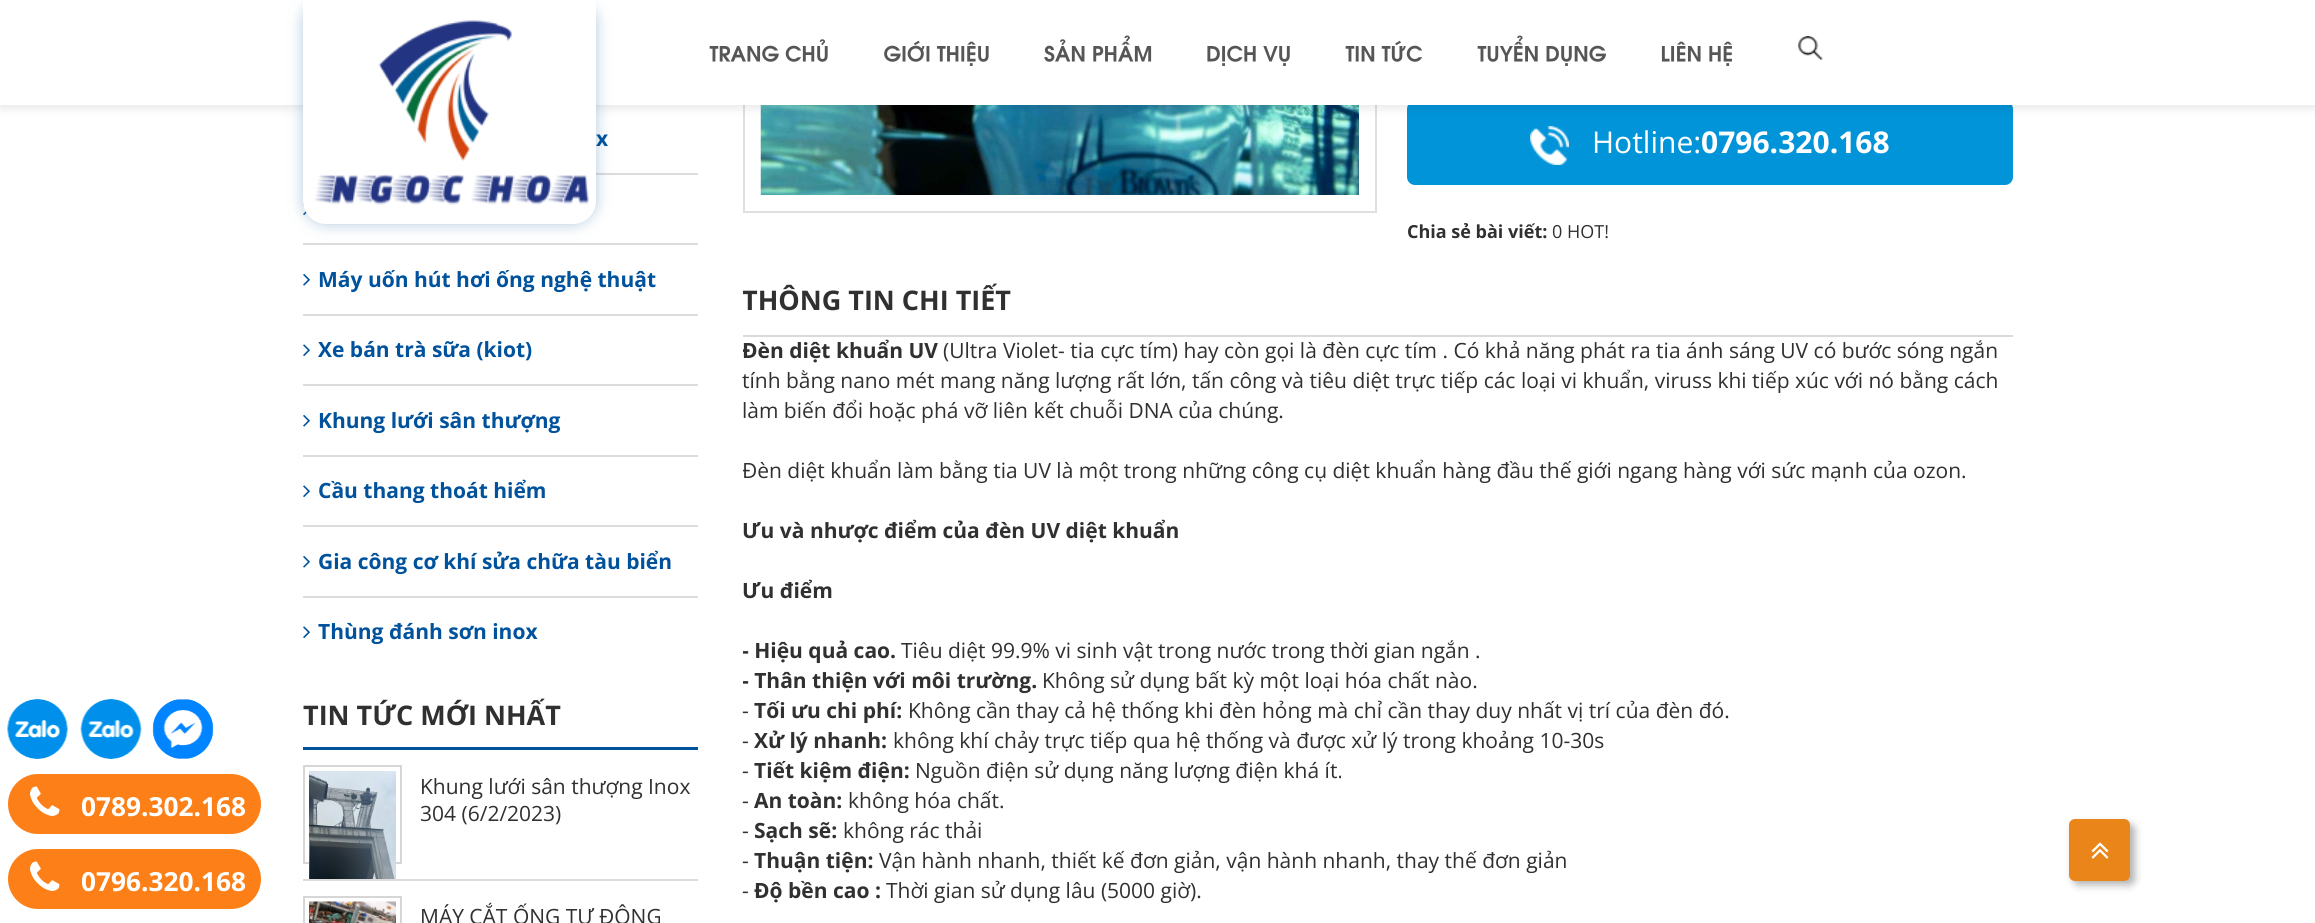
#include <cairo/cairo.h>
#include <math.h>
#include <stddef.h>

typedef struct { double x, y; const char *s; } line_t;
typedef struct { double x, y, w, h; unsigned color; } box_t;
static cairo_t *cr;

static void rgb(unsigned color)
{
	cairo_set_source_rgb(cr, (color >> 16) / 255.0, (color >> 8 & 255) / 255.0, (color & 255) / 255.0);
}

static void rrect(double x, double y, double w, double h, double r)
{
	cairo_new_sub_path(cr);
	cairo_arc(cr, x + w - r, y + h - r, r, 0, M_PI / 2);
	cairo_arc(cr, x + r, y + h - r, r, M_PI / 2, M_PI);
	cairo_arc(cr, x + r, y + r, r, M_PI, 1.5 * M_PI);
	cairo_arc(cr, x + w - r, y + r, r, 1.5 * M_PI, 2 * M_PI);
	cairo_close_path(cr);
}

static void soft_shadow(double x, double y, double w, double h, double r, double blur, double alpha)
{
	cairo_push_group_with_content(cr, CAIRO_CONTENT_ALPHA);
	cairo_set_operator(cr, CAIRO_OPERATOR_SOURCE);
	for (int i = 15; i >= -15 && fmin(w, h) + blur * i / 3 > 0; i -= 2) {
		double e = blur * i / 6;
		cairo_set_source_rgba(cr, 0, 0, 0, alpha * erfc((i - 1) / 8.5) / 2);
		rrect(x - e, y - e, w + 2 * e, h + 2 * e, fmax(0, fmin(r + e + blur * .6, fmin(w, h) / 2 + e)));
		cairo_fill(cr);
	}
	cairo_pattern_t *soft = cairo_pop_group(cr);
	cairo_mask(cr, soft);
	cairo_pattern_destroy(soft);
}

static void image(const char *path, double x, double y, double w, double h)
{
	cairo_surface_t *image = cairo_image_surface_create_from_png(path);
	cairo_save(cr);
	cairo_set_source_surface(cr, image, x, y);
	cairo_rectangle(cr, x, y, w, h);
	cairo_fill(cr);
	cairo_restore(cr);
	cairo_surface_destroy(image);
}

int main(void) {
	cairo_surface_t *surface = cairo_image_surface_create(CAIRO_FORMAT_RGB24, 2315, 923);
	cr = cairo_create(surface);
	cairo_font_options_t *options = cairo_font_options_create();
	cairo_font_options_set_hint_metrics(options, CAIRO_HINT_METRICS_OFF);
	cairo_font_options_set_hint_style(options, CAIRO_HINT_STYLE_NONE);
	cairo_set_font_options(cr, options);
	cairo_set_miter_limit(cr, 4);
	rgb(0xffffff);
	cairo_paint(cr);
	cairo_rectangle(cr, 744, -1, 632, 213);
	rgb(0xdfdfdf);
	cairo_stroke(cr);
	image("img/18.png", 760, 105, 599, 90);
	rgb(0x0194d9);
	rrect(1407, 101, 606, 84, 8);
	cairo_fill(cr);
	rgb(0x000000);
	soft_shadow(0, 3, 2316, 105, 0, 5, 0.1);
	{
		static const box_t items[] = {
			{0, 0, 2315, 105, 0xffffff},
			{596, 173, 102, 2, 0xdddbdb},
			{303, 243, 395, 2, 0xdddbdb},
		};
		for (size_t i = 0; i < sizeof items / sizeof *items; i++) {
			rgb(items[i].color);
			cairo_rectangle(cr, items[i].x, items[i].y, items[i].w, items[i].h);
			cairo_fill(cr);
		}
	}
	image("img/13.png", 303, 203, 4, 12);
	rgb(0x3c79ae);
	soft_shadow(303, 0, 293, 224, 23, 7.5, 0.4);
	rgb(0xffffff);
	cairo_new_path(cr);
	cairo_move_to(cr, 303, 0);
	cairo_line_to(cr, 596, 0);
	cairo_line_to(cr, 596, 201);
	cairo_curve_to(cr, 596, 213.5, 585.5, 224, 573, 224);
	cairo_line_to(cr, 326, 224);
	cairo_curve_to(cr, 313.5, 224, 303, 213.5, 303, 201);
	cairo_close_path(cr);
	cairo_fill(cr);
	image("img/1.png", 315, 20, 274, 185);
	image("img/2.png", 709, 39, 119, 23);
	image("img/3.png", 884, 40, 105, 26);
	image("img/4.png", 1044, 35, 108, 27);
	image("img/5.png", 1207, 45, 83, 21);
	image("img/6.png", 1345, 40, 77, 22);
	image("img/7.png", 1477, 35, 129, 31);
	image("img/8.png", 1661, 41, 71, 25);
	image("img/9.png", 1798, 36, 25, 24);
	image("img/10.png", 7, 699, 61, 60);
	image("img/11.png", 80, 699, 62, 60);
	rgb(0x0083fe);
	cairo_arc(cr, 183, 729, 30, 0, 2 * M_PI);
	cairo_fill(cr);
	image("img/12.png", 152, 699, 62, 60);
	rgb(0xdddbdb);
	cairo_rectangle(cr, 303, 314, 395, 2);
	cairo_fill(cr);
	image("img/14.png", 303, 274, 7, 12);
	cairo_rectangle(cr, 303, 384, 395, 2);
	cairo_fill(cr);
	image("img/15.png", 303, 344, 7, 12);
	cairo_rectangle(cr, 303, 455, 395, 2);
	cairo_fill(cr);
	image("img/14.png", 303, 415, 7, 12);
	cairo_rectangle(cr, 303, 525, 395, 2);
	cairo_fill(cr);
	image("img/15.png", 303, 485, 7, 12);
	cairo_rectangle(cr, 303, 596, 395, 2);
	cairo_fill(cr);
	image("img/14.png", 303, 556, 7, 12);
	image("img/15.png", 303, 626, 7, 12);
	rgb(0x00529c);
	cairo_rectangle(cr, 303, 747, 395, 3);
	cairo_fill(cr);
	rgb(0xdddbdb);
	cairo_rectangle(cr, 303, 879, 395, 2);
	cairo_fill(cr);
	cairo_rectangle(cr, 304, 766, 97, 97);
	rgb(0xd6d6d6);
	cairo_stroke(cr);
	image("img/16.png", 309, 771, 87, 108);
	cairo_rectangle(cr, 304, 897, 97, 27);
	cairo_stroke(cr);
	image("img/17.png", 309, 901, 87, 22);
	image("img/19.png", 1530, 126, 39, 39);
	rgb(0xdadada);
	cairo_rectangle(cr, 743, 335, 1270, 2);
	cairo_fill(cr);
	rgb(0xfc7f17);
	rrect(8, 774, 253, 60, 30);
	cairo_fill(cr);
	image("img/20.png", 30, 786, 30, 30);
	rrect(8, 849, 253, 60, 30);
	cairo_fill(cr);
	image("img/20.png", 30, 861, 30, 30);
	rgb(0x000000);
	soft_shadow(2073, 824, 62, 61, 6, 4, 0.3);
	rgb(0xe98519);
	rrect(2069, 819, 61, 62, 6);
	cairo_fill(cr);
	image("img/21.png", 2091, 842, 18, 17);
	cairo_select_font_face(cr, "Open Sans", CAIRO_FONT_SLANT_NORMAL, CAIRO_FONT_WEIGHT_BOLD);
	cairo_set_font_size(cr, 21);
	rgb(0x00529c);
	{
		static const line_t items[] = {
			{596, 146, "x"},
			{318, 287, "Máy uốn hút hơi ống nghệ thuật"},
			{318, 357, "Xe bán trà sữa (kiot)"},
			{318, 428, "Khung lưới sân thượng"},
			{318, 498, "Cầu thang thoát hiểm"},
			{318, 569, "Gia công cơ khí sửa chữa tàu biển"},
			{318, 639, "Thùng đánh sơn inox"},
		};
		for (size_t i = 0; i < sizeof items / sizeof *items; i++) {
			cairo_move_to(cr, items[i].x, items[i].y);
			cairo_show_text(cr, items[i].s);
		}
	}
	cairo_set_font_size(cr, 27);
	rgb(0x303030);
	cairo_move_to(cr, 303, 725);
	cairo_show_text(cr, "TIN TỨC MỚI NHẤT");
	cairo_select_font_face(cr, "Open Sans", CAIRO_FONT_SLANT_NORMAL, CAIRO_FONT_WEIGHT_NORMAL);
	cairo_set_font_size(cr, 21);
	{
		static const line_t items[] = {
			{420, 794, "Khung lưới sân thượng Inox"},
			{420, 821, "304 (6/2/2023)"},
			{420, 924, "MÁY CẮT ỐNG TỰ ĐỘNG"},
		};
		for (size_t i = 0; i < sizeof items / sizeof *items; i++) {
			cairo_move_to(cr, items[i].x, items[i].y);
			cairo_show_text(cr, items[i].s);
		}
	}
	cairo_set_font_size(cr, 30);
	rgb(0xffffff);
	cairo_move_to(cr, 1592, 153);
	cairo_show_text(cr, "Hotline:");
	cairo_select_font_face(cr, "Open Sans", CAIRO_FONT_SLANT_NORMAL, CAIRO_FONT_WEIGHT_BOLD);
	cairo_move_to(cr, 1701, 153);
	cairo_show_text(cr, "0796.320.168");
	cairo_set_font_size(cr, 18);
	rgb(0x303030);
	cairo_move_to(cr, 1407, 238);
	cairo_show_text(cr, "Chia sẻ bài viết:");
	cairo_select_font_face(cr, "Open Sans", CAIRO_FONT_SLANT_NORMAL, CAIRO_FONT_WEIGHT_NORMAL);
	cairo_move_to(cr, 1552, 238);
	cairo_show_text(cr, "0 HOT!");
	cairo_save(cr);
	cairo_rectangle(cr, 743, 282, 1270, 53);
	cairo_clip(cr);
	cairo_select_font_face(cr, "Open Sans", CAIRO_FONT_SLANT_NORMAL, CAIRO_FONT_WEIGHT_BOLD);
	cairo_set_font_size(cr, 27);
	cairo_move_to(cr, 742, 310);
	cairo_show_text(cr, "THÔNG TIN CHI TIẾT");
	cairo_restore(cr);
	cairo_save(cr);
	cairo_rectangle(cr, 743, 282, 1270, 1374);
	cairo_clip(cr);
	cairo_select_font_face(cr, "Open Sans", CAIRO_FONT_SLANT_NORMAL, CAIRO_FONT_WEIGHT_BOLD);
	cairo_set_font_size(cr, 21);
	cairo_move_to(cr, 742, 358);
	cairo_show_text(cr, "Đèn diệt khuẩn UV");
	cairo_restore(cr);
	cairo_set_font_size(cr, 21);
	{
		static const line_t items[] = {
			{943, 358, "(Ultra Violet- tia cực tím) hay còn gọi là đèn cực tím . Có khả năng phát ra tia ánh sáng UV có bước sóng ngắn"},
			{742, 388, "tính bằng nano mét mang năng lượng rất lớn, tấn công và tiêu diệt trực tiếp các loại vi khuẩn, viruss khi tiếp xúc với nó bằng cách"},
			{742, 418, "làm biến đổi hoặc phá vỡ liên kết chuỗi DNA của chúng."},
		};
		for (size_t i = 0; i < sizeof items / sizeof *items; i++) {
			cairo_move_to(cr, items[i].x, items[i].y);
			cairo_show_text(cr, items[i].s);
		}
	}
	cairo_save(cr);
	cairo_rectangle(cr, 743, 282, 1270, 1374);
	cairo_clip(cr);
	cairo_move_to(cr, 742, 478);
	cairo_show_text(cr, "Đèn diệt khuẩn làm bằng tia UV là một trong những công cụ diệt khuẩn hàng đầu thế giới ngang hàng với sức mạnh của ozon.");
	cairo_restore(cr);
	cairo_select_font_face(cr, "Open Sans", CAIRO_FONT_SLANT_NORMAL, CAIRO_FONT_WEIGHT_BOLD);
	cairo_move_to(cr, 742, 538);
	cairo_show_text(cr, "Ưu và nhược điểm của đèn UV diệt khuẩn");
	cairo_move_to(cr, 742, 598);
	cairo_show_text(cr, "Ưu điểm");
	cairo_save(cr);
	cairo_rectangle(cr, 743, 282, 1270, 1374);
	cairo_clip(cr);
	cairo_move_to(cr, 742, 658);
	cairo_show_text(cr, "- Hiệu quả cao.");
	cairo_restore(cr);
	cairo_select_font_face(cr, "Open Sans", CAIRO_FONT_SLANT_NORMAL, CAIRO_FONT_WEIGHT_NORMAL);
	cairo_move_to(cr, 901, 658);
	cairo_show_text(cr, "Tiêu diệt 99.9% vi sinh vật trong nước trong thời gian ngắn .");
	cairo_save(cr);
	cairo_rectangle(cr, 743, 282, 1270, 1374);
	cairo_clip(cr);
	cairo_select_font_face(cr, "Open Sans", CAIRO_FONT_SLANT_NORMAL, CAIRO_FONT_WEIGHT_BOLD);
	cairo_move_to(cr, 742, 688);
	cairo_show_text(cr, "- Thân thiện với môi trường.");
	cairo_restore(cr);
	cairo_move_to(cr, 1042, 688);
	cairo_show_text(cr, "Không sử dụng bất kỳ một loại hóa chất nào.");
	cairo_move_to(cr, 742, 718);
	cairo_show_text(cr, "-");
	cairo_select_font_face(cr, "Open Sans", CAIRO_FONT_SLANT_NORMAL, CAIRO_FONT_WEIGHT_BOLD);
	cairo_move_to(cr, 754, 718);
	cairo_show_text(cr, "Tối ưu chi phí:");
	cairo_select_font_face(cr, "Open Sans", CAIRO_FONT_SLANT_NORMAL, CAIRO_FONT_WEIGHT_NORMAL);
	cairo_move_to(cr, 908, 718);
	cairo_show_text(cr, "Không cần thay cả hệ thống khi đèn hỏng mà chỉ cần thay duy nhất vị trí của đèn đó.");
	cairo_move_to(cr, 742, 748);
	cairo_show_text(cr, "-");
	cairo_select_font_face(cr, "Open Sans", CAIRO_FONT_SLANT_NORMAL, CAIRO_FONT_WEIGHT_BOLD);
	cairo_move_to(cr, 754, 748);
	cairo_show_text(cr, "Xử lý nhanh:");
	cairo_select_font_face(cr, "Open Sans", CAIRO_FONT_SLANT_NORMAL, CAIRO_FONT_WEIGHT_NORMAL);
	cairo_move_to(cr, 893, 748);
	cairo_show_text(cr, "không khí chảy trực tiếp qua hệ thống và được xử lý trong khoảng 10-30s");
	cairo_move_to(cr, 742, 778);
	cairo_show_text(cr, "-");
	cairo_select_font_face(cr, "Open Sans", CAIRO_FONT_SLANT_NORMAL, CAIRO_FONT_WEIGHT_BOLD);
	cairo_move_to(cr, 754, 778);
	cairo_show_text(cr, "Tiết kiệm điện:");
	cairo_select_font_face(cr, "Open Sans", CAIRO_FONT_SLANT_NORMAL, CAIRO_FONT_WEIGHT_NORMAL);
	cairo_move_to(cr, 915, 778);
	cairo_show_text(cr, "Nguồn điện sử dụng năng lượng điện khá ít.");
	cairo_move_to(cr, 742, 808);
	cairo_show_text(cr, "-");
	cairo_select_font_face(cr, "Open Sans", CAIRO_FONT_SLANT_NORMAL, CAIRO_FONT_WEIGHT_BOLD);
	cairo_move_to(cr, 754, 808);
	cairo_show_text(cr, "An toàn:");
	cairo_select_font_face(cr, "Open Sans", CAIRO_FONT_SLANT_NORMAL, CAIRO_FONT_WEIGHT_NORMAL);
	cairo_move_to(cr, 848, 808);
	cairo_show_text(cr, "không hóa chất.");
	cairo_move_to(cr, 742, 838);
	cairo_show_text(cr, "-");
	cairo_select_font_face(cr, "Open Sans", CAIRO_FONT_SLANT_NORMAL, CAIRO_FONT_WEIGHT_BOLD);
	cairo_move_to(cr, 754, 838);
	cairo_show_text(cr, "Sạch sẽ:");
	cairo_select_font_face(cr, "Open Sans", CAIRO_FONT_SLANT_NORMAL, CAIRO_FONT_WEIGHT_NORMAL);
	cairo_move_to(cr, 843, 838);
	cairo_show_text(cr, "không rác thải");
	cairo_move_to(cr, 742, 868);
	cairo_show_text(cr, "-");
	cairo_select_font_face(cr, "Open Sans", CAIRO_FONT_SLANT_NORMAL, CAIRO_FONT_WEIGHT_BOLD);
	cairo_move_to(cr, 754, 868);
	cairo_show_text(cr, "Thuận tiện:");
	cairo_select_font_face(cr, "Open Sans", CAIRO_FONT_SLANT_NORMAL, CAIRO_FONT_WEIGHT_NORMAL);
	cairo_move_to(cr, 879, 868);
	cairo_show_text(cr, "Vận hành nhanh, thiết kế đơn giản, vận hành nhanh, thay thế đơn giản");
	cairo_move_to(cr, 742, 898);
	cairo_show_text(cr, "-");
	cairo_select_font_face(cr, "Open Sans", CAIRO_FONT_SLANT_NORMAL, CAIRO_FONT_WEIGHT_BOLD);
	cairo_move_to(cr, 754, 898);
	cairo_show_text(cr, "Độ bền cao :");
	cairo_select_font_face(cr, "Open Sans", CAIRO_FONT_SLANT_NORMAL, CAIRO_FONT_WEIGHT_NORMAL);
	cairo_move_to(cr, 886, 898);
	cairo_show_text(cr, "Thời gian sử dụng lâu (5000 giờ).");
	cairo_select_font_face(cr, "Open Sans", CAIRO_FONT_SLANT_NORMAL, CAIRO_FONT_WEIGHT_BOLD);
	cairo_set_font_size(cr, 26.25);
	rgb(0xffffff);
	cairo_move_to(cr, 81, 816);
	cairo_show_text(cr, "0789.302.168");
	cairo_move_to(cr, 81, 891);
	cairo_show_text(cr, "0796.320.168");
	cairo_surface_write_to_png(surface, "page.png");
	cairo_font_options_destroy(options);
	cairo_destroy(cr);
	cairo_surface_destroy(surface);
	return 0;
}
